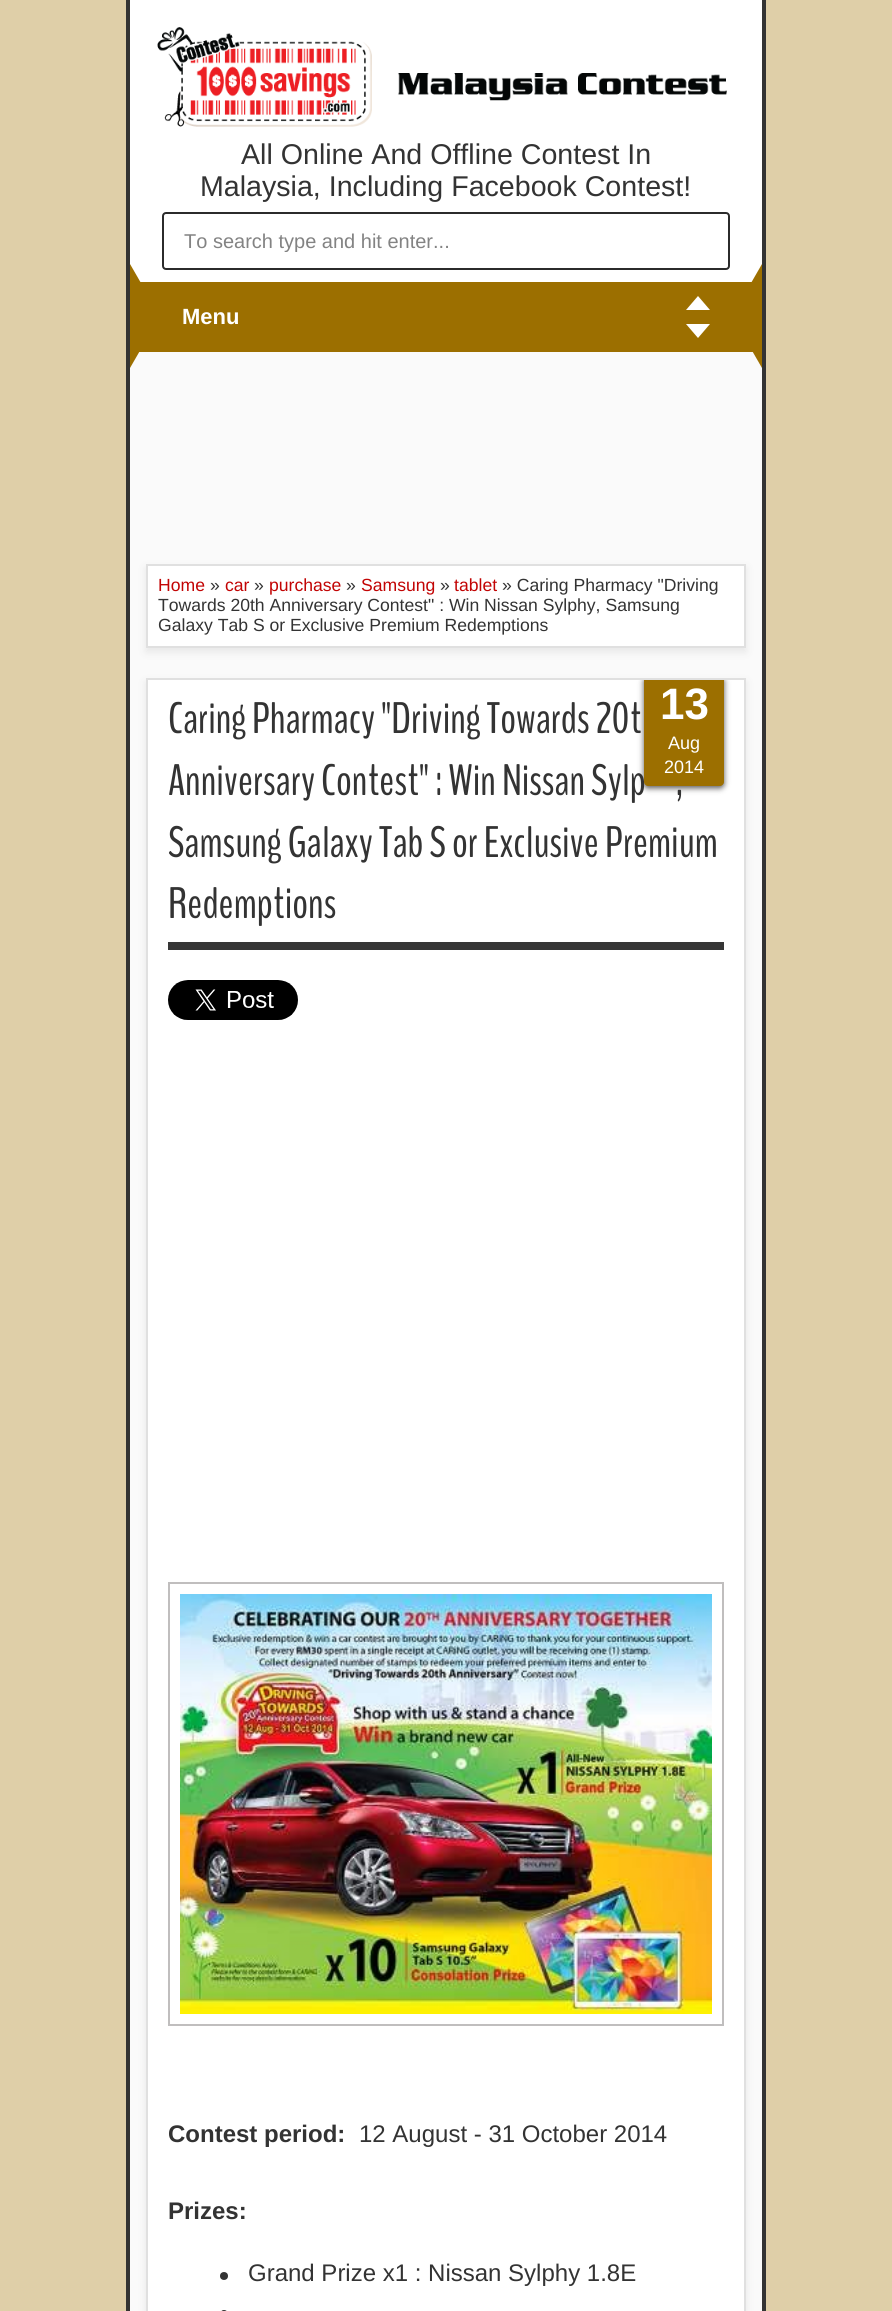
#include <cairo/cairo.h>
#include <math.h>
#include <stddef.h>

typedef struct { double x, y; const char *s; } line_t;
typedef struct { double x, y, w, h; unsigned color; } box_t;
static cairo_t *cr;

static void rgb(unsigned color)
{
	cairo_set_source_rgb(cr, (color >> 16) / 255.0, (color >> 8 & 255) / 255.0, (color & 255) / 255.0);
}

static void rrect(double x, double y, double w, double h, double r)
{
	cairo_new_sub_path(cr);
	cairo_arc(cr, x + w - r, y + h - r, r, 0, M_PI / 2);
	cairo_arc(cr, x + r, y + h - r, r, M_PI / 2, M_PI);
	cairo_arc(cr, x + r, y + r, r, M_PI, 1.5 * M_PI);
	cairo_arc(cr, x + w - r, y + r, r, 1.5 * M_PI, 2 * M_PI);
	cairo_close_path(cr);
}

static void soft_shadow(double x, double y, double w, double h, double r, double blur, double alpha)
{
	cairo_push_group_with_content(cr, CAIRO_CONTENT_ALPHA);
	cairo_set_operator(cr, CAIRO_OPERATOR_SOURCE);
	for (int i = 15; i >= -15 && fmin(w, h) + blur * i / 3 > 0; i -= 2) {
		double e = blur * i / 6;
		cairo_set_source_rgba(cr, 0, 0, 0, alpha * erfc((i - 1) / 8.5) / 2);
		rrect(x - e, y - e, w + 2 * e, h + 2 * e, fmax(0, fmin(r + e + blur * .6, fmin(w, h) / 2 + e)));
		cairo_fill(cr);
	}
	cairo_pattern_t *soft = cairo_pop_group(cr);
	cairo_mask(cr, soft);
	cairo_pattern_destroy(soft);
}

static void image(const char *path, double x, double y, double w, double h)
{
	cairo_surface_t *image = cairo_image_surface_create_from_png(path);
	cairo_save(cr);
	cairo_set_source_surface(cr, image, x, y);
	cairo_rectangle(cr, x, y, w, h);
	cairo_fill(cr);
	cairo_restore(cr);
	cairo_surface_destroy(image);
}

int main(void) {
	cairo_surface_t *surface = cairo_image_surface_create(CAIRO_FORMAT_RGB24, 892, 2311);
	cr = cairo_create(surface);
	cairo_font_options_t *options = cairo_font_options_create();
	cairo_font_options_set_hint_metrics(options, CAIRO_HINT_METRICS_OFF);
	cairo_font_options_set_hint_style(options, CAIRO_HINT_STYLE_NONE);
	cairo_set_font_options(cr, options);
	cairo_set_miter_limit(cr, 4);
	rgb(0xdfcfa8);
	cairo_paint(cr);
	{
		static const box_t items[] = {
			{130, 352, 632, 1959, 0xfafafa},
			{762, 0, 4, 2311, 0x333333},
			{126, 0, 4, 2311, 0x333333},
			{130, 0, 632, 282, 0xffffff},
		};
		for (size_t i = 0; i < sizeof items / sizeof *items; i++) {
			rgb(items[i].color);
			cairo_rectangle(cr, items[i].x, items[i].y, items[i].w, items[i].h);
			cairo_fill(cr);
		}
	}
	image("img/1.png", 157, 27, 570, 100);
	rgb(0x9c6f00);
	cairo_rectangle(cr, 139, 282, 614, 70);
	cairo_fill(cr);
	rrect(163, 213, 566, 56, 3);
	rgb(0x2b2b2b);
	cairo_stroke(cr);
	rgb(0x9c6f00);
	cairo_new_path(cr);
	cairo_move_to(cr, 130, 368);
	cairo_line_to(cr, 130, 264);
	cairo_line_to(cr, 160, 316);
	cairo_close_path(cr);
	cairo_fill(cr);
	rgb(0xffffff);
	cairo_new_path(cr);
	cairo_move_to(cr, 686, 324);
	cairo_line_to(cr, 710, 324);
	cairo_line_to(cr, 698, 338);
	cairo_close_path(cr);
	cairo_move_to(cr, 710, 310);
	cairo_line_to(cr, 686, 310);
	cairo_line_to(cr, 698, 296);
	cairo_close_path(cr);
	cairo_fill(cr);
	rgb(0x9c6f00);
	cairo_new_path(cr);
	cairo_move_to(cr, 762, 264);
	cairo_line_to(cr, 762, 368);
	cairo_line_to(cr, 732, 316);
	cairo_close_path(cr);
	cairo_fill(cr);
	rgb(0xe7e7e7);
	soft_shadow(146, 568, 600, 84, 0, 4, 1);
	rgb(0xffffff);
	cairo_rectangle(cr, 147, 565, 598, 82);
	cairo_fill_preserve(cr);
	rgb(0xe0e0e0);
	cairo_stroke(cr);
	rgb(0xe7e7e7);
	soft_shadow(146, 682, 600, 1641, 0, 4, 1);
	rgb(0xffffff);
	cairo_rectangle(cr, 147, 679, 598, 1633);
	cairo_fill_preserve(cr);
	rgb(0xe0e0e0);
	cairo_stroke(cr);
	cairo_save(cr);
	cairo_rectangle(cr, 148, 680, 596, 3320);
	cairo_clip(cr);
	rgb(0x555454);
	soft_shadow(644, 678, 80, 110, 4, 3, 1);
	cairo_restore(cr);
	rgb(0x363636);
	cairo_rectangle(cr, 168, 942, 556, 8);
	cairo_fill(cr);
	image("img/2.png", 168, 980, 130, 40);
	cairo_rectangle(cr, 169, 1583, 554, 442);
	rgb(0xc0bebe);
	cairo_stroke(cr);
	image("img/3.png", 180, 1594, 532, 420);
	rgb(0x333333);
	cairo_arc(cr, 224, 2276, 4, 0, 2 * M_PI);
	cairo_fill(cr);
	rrect(220, 2310, 8, 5, 4);
	cairo_fill(cr);
	cairo_select_font_face(cr, "Liberation Sans", CAIRO_FONT_SLANT_NORMAL, CAIRO_FONT_WEIGHT_NORMAL);
	cairo_set_font_size(cr, 28.6);
	cairo_move_to(cr, 241, 164);
	cairo_show_text(cr, "All Online And Offline Contest In");
	cairo_move_to(cr, 200, 196);
	cairo_show_text(cr, "Malaysia, Including Facebook Contest!");
	cairo_save(cr);
	cairo_rectangle(cr, 184, 230, 540, 22);
	cairo_clip(cr);
	cairo_set_font_size(cr, 20);
	rgb(0x838383);
	cairo_move_to(cr, 184, 248);
	cairo_show_text(cr, "To search type and hit enter...");
	cairo_restore(cr);
	cairo_select_font_face(cr, "Liberation Sans", CAIRO_FONT_SLANT_NORMAL, CAIRO_FONT_WEIGHT_BOLD);
	cairo_set_font_size(cr, 22);
	rgb(0xffffff);
	cairo_move_to(cr, 182, 324);
	cairo_show_text(cr, "Menu");
	cairo_select_font_face(cr, "Liberation Sans", CAIRO_FONT_SLANT_NORMAL, CAIRO_FONT_WEIGHT_NORMAL);
	cairo_set_font_size(cr, 17.6);
	rgb(0xc20404);
	cairo_move_to(cr, 158, 591);
	cairo_show_text(cr, "Home");
	rgb(0x333333);
	cairo_move_to(cr, 210, 591);
	cairo_show_text(cr, "»");
	rgb(0xc20404);
	cairo_move_to(cr, 225, 591);
	cairo_show_text(cr, "car");
	rgb(0x333333);
	cairo_move_to(cr, 254, 591);
	cairo_show_text(cr, "»");
	rgb(0xc20404);
	cairo_move_to(cr, 269, 591);
	cairo_show_text(cr, "purchase");
	rgb(0x333333);
	cairo_move_to(cr, 346, 591);
	cairo_show_text(cr, "»");
	rgb(0xc20404);
	cairo_move_to(cr, 361, 591);
	cairo_show_text(cr, "Samsung");
	rgb(0x333333);
	cairo_move_to(cr, 440, 591);
	cairo_show_text(cr, "»");
	rgb(0xc20404);
	cairo_move_to(cr, 454, 591);
	cairo_show_text(cr, "tablet");
	rgb(0x333333);
	{
		static const line_t items[] = {
			{502, 591, "» Caring Pharmacy \"Driving"},
			{158, 611, "Towards 20th Anniversary Contest\" : Win Nissan Sylphy, Samsung"},
			{158, 631, "Galaxy Tab S or Exclusive Premium Redemptions"},
		};
		for (size_t i = 0; i < sizeof items / sizeof *items; i++) {
			cairo_move_to(cr, items[i].x, items[i].y);
			cairo_show_text(cr, items[i].s);
		}
	}
	cairo_select_font_face(cr, "BenchNine", CAIRO_FONT_SLANT_NORMAL, CAIRO_FONT_WEIGHT_NORMAL);
	cairo_set_font_size(cr, 44);
	cairo_move_to(cr, 168, 733);
	cairo_show_text(cr, "Caring Pharmacy \"Driving Towards 20t");
	cairo_move_to(cr, 168, 795);
	cairo_show_text(cr, "Anniversary Contest\" : Win Nissan Sylp");
	rgb(0x9c6f00);
	cairo_new_path(cr);
	cairo_move_to(cr, 644, 680);
	cairo_line_to(cr, 724, 680);
	cairo_line_to(cr, 724, 782);
	cairo_curve_to(cr, 724, 784, 722, 786, 720, 786);
	cairo_line_to(cr, 648, 786);
	cairo_curve_to(cr, 646, 786, 644, 784, 644, 782);
	cairo_close_path(cr);
	cairo_fill(cr);
	cairo_select_font_face(cr, "Liberation Sans", CAIRO_FONT_SLANT_NORMAL, CAIRO_FONT_WEIGHT_NORMAL);
	cairo_set_font_size(cr, 18);
	rgb(0xffffff);
	cairo_move_to(cr, 664, 773);
	cairo_show_text(cr, "2014");
	cairo_move_to(cr, 668, 749);
	cairo_show_text(cr, "Aug");
	cairo_select_font_face(cr, "Liberation Sans", CAIRO_FONT_SLANT_NORMAL, CAIRO_FONT_WEIGHT_BOLD);
	cairo_set_font_size(cr, 44);
	cairo_move_to(cr, 660, 719);
	cairo_show_text(cr, "13");
	cairo_select_font_face(cr, "BenchNine", CAIRO_FONT_SLANT_NORMAL, CAIRO_FONT_WEIGHT_NORMAL);
	rgb(0x333333);
	{
		static const line_t items[] = {
			{676, 795, ","},
			{168, 857, "Samsung Galaxy Tab S or Exclusive Premium"},
			{168, 918, "Redemptions"},
		};
		for (size_t i = 0; i < sizeof items / sizeof *items; i++) {
			cairo_move_to(cr, items[i].x, items[i].y);
			cairo_show_text(cr, items[i].s);
		}
	}
	cairo_select_font_face(cr, "Liberation Sans", CAIRO_FONT_SLANT_NORMAL, CAIRO_FONT_WEIGHT_BOLD);
	cairo_set_font_size(cr, 24);
	cairo_move_to(cr, 168, 2142);
	cairo_show_text(cr, "Contest period:");
	cairo_select_font_face(cr, "Liberation Sans", CAIRO_FONT_SLANT_NORMAL, CAIRO_FONT_WEIGHT_NORMAL);
	cairo_move_to(cr, 359, 2142);
	cairo_show_text(cr, "12 August - 31 October 2014");
	cairo_select_font_face(cr, "Liberation Sans", CAIRO_FONT_SLANT_NORMAL, CAIRO_FONT_WEIGHT_BOLD);
	cairo_move_to(cr, 168, 2219);
	cairo_show_text(cr, "Prizes:");
	cairo_select_font_face(cr, "Liberation Sans", CAIRO_FONT_SLANT_NORMAL, CAIRO_FONT_WEIGHT_NORMAL);
	cairo_move_to(cr, 248, 2281);
	cairo_show_text(cr, "Grand Prize x1 : Nissan Sylphy 1.8E");
	cairo_surface_write_to_png(surface, "page.png");
	cairo_font_options_destroy(options);
	cairo_destroy(cr);
	cairo_surface_destroy(surface);
	return 0;
}
